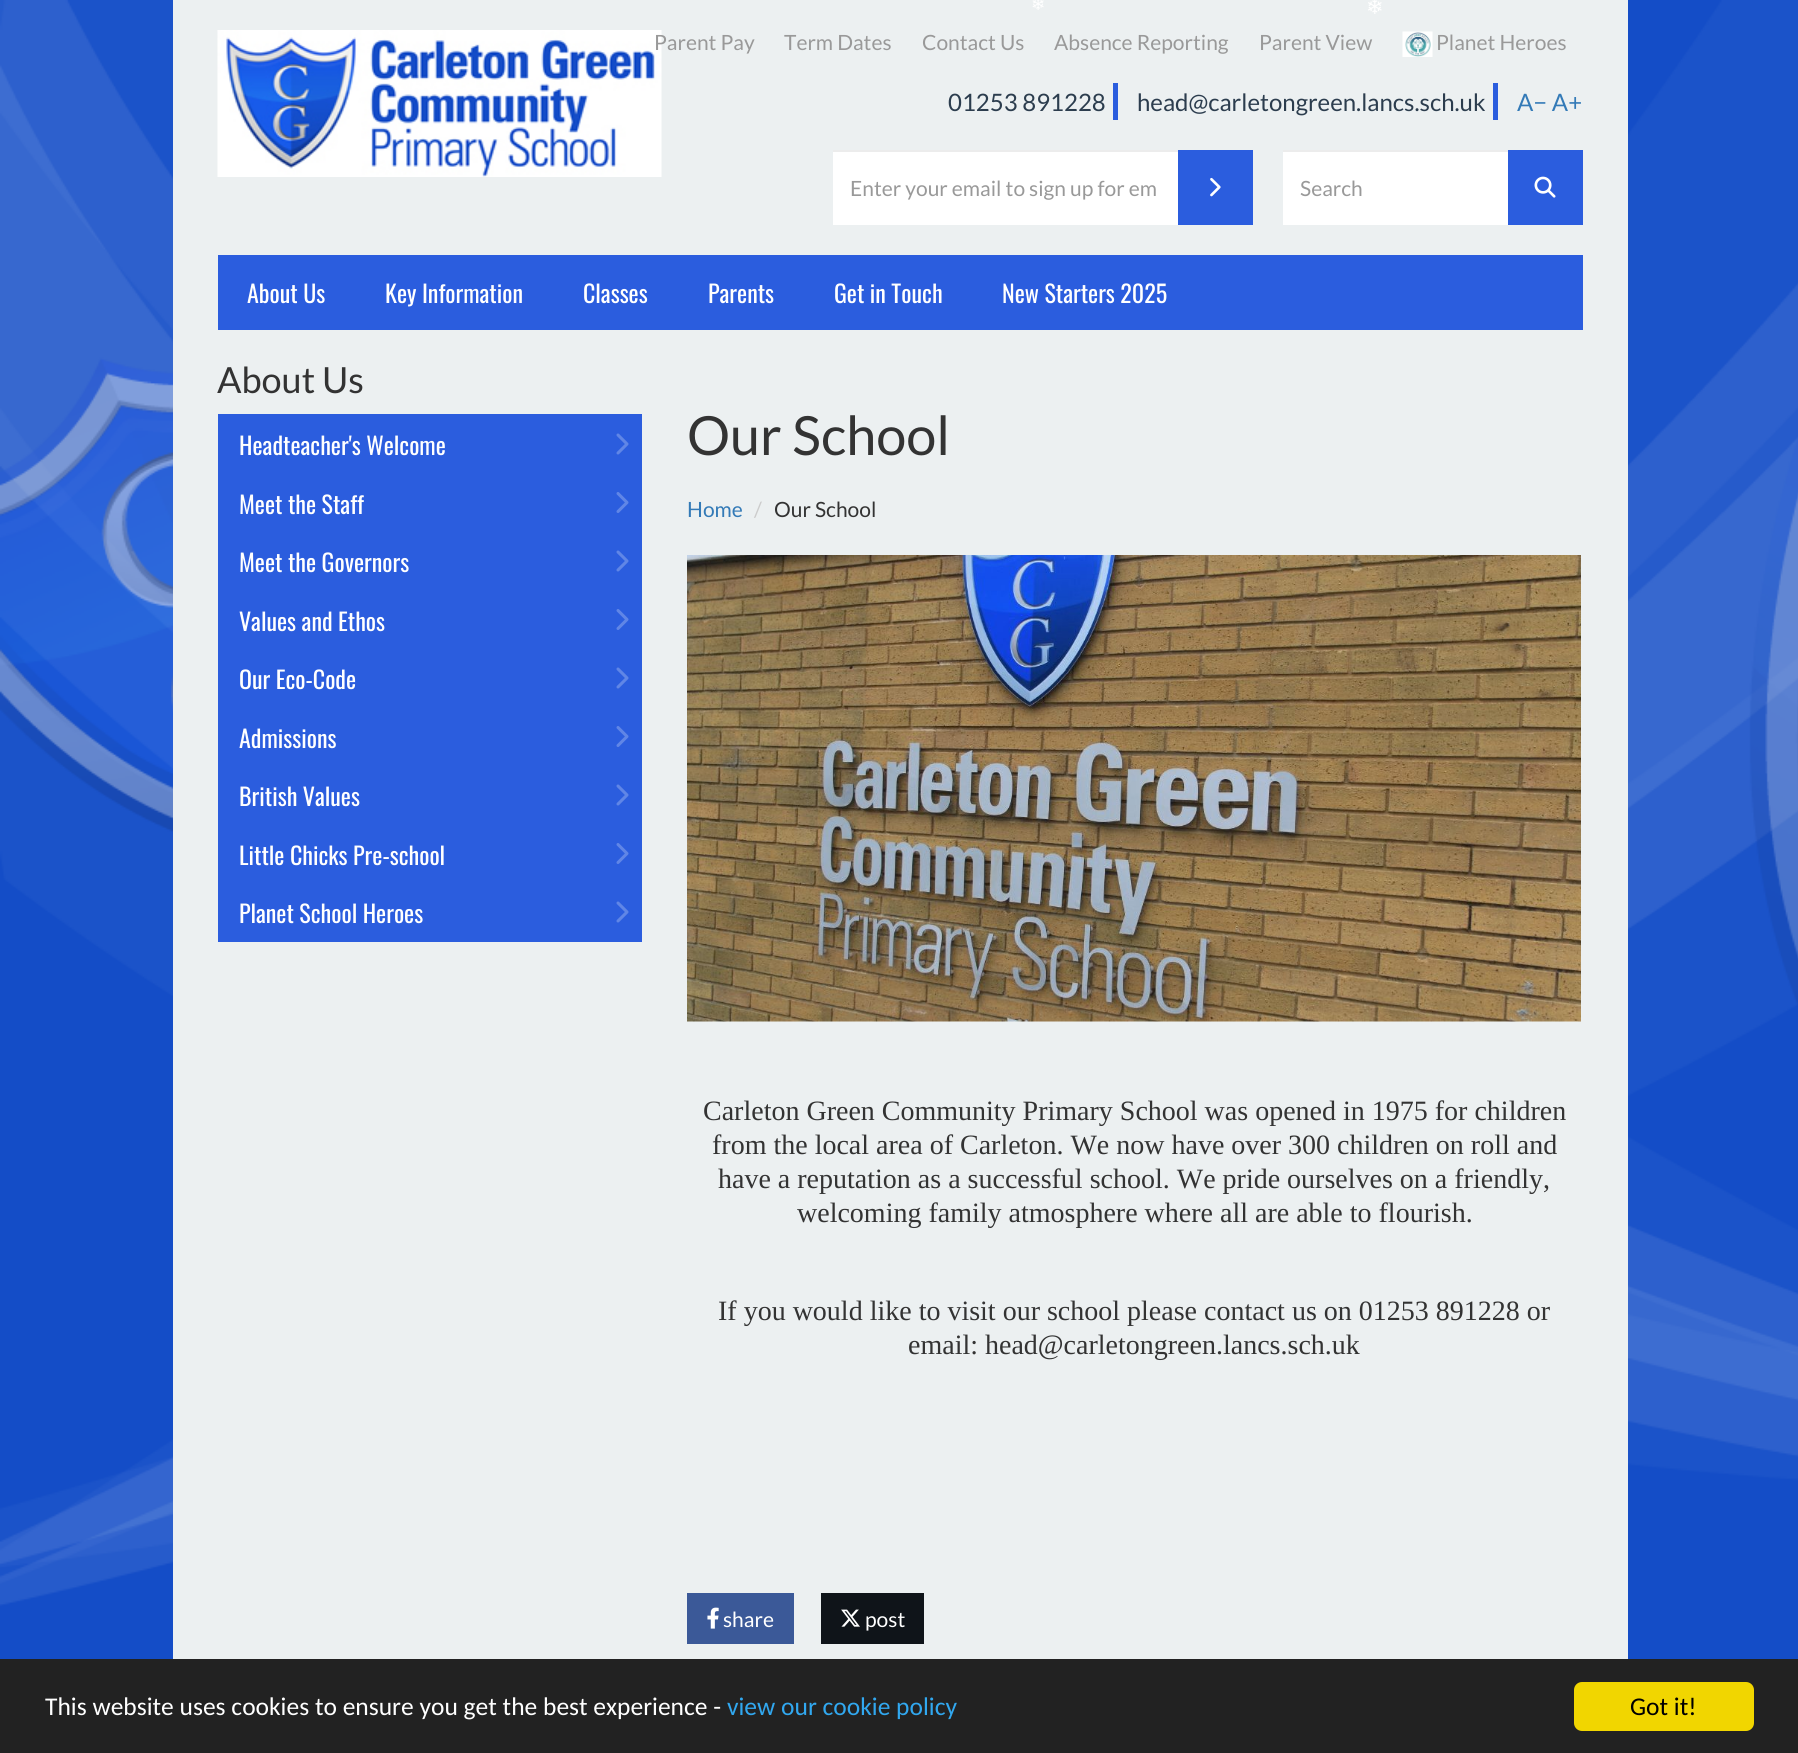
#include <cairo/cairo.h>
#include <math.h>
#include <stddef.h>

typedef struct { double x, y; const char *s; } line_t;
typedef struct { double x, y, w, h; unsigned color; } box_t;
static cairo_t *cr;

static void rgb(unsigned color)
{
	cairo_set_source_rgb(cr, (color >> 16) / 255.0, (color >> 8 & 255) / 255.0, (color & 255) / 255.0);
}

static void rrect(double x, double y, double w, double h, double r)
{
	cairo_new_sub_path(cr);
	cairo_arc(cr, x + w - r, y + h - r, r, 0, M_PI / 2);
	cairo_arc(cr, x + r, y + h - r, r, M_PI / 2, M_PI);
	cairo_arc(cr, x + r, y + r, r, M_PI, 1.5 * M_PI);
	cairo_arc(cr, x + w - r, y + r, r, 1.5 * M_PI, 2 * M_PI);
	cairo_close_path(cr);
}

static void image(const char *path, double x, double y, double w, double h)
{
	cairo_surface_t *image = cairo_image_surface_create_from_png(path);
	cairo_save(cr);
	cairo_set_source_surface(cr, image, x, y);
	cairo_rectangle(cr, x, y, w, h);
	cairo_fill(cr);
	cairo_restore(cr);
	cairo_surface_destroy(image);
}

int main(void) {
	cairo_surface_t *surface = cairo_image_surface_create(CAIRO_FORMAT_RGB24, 1798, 1753);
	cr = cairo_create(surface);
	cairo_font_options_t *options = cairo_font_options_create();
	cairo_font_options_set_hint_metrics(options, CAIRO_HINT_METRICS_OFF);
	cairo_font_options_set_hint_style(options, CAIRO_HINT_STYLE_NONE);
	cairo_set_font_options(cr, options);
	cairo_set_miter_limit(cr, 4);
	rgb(0xffffff);
	cairo_paint(cr);
	image("img/1.png", 0, 0, 1798, 1659);
	rgb(0xecf0f1);
	cairo_rectangle(cr, 173, 0, 1455, 1659);
	cairo_fill(cr);
	image("img/2.png", 1402, 31, 31, 26);
	{
		static const box_t items[] = {
			{833, 152, 345, 73, 0xffffff},
			{833, 150, 346, 2, 0xececec},
			{1178, 150, 75, 75, 0x2b5dde},
		};
		for (size_t i = 0; i < sizeof items / sizeof *items; i++) {
			rgb(items[i].color);
			cairo_rectangle(cr, items[i].x, items[i].y, items[i].w, items[i].h);
			cairo_fill(cr);
		}
	}
	image("img/3.png", 1210, 177, 11, 20);
	{
		static const box_t items[] = {
			{1283, 152, 225, 73, 0xffffff},
			{1283, 150, 226, 2, 0xececec},
			{1508, 150, 75, 75, 0x2b5dde},
		};
		for (size_t i = 0; i < sizeof items / sizeof *items; i++) {
			rgb(items[i].color);
			cairo_rectangle(cr, items[i].x, items[i].y, items[i].w, items[i].h);
			cairo_fill(cr);
		}
	}
	image("img/4.png", 1534, 176, 22, 22);
	cairo_rectangle(cr, 218, 255, 1365, 75);
	cairo_fill(cr);
	image("img/5.png", 217, 30, 445, 147);
	{
		static const box_t items[] = {
			{1113, 83, 5, 37, 0x2b5dde},
			{1493, 83, 5, 37, 0x2b5dde},
			{218, 414, 424, 528, 0x2b5dde},
		};
		for (size_t i = 0; i < sizeof items / sizeof *items; i++) {
			rgb(items[i].color);
			cairo_rectangle(cr, items[i].x, items[i].y, items[i].w, items[i].h);
			cairo_fill(cr);
		}
	}
	image("img/6.png", 616, 433, 13, 22);
	image("img/7.png", 616, 492, 13, 21);
	image("img/6.png", 616, 550, 13, 22);
	image("img/7.png", 616, 609, 13, 21);
	image("img/6.png", 616, 667, 13, 22);
	image("img/7.png", 616, 726, 13, 21);
	image("img/6.png", 616, 784, 13, 22);
	image("img/7.png", 616, 843, 13, 21);
	image("img/6.png", 616, 901, 13, 22);
	image("img/8.png", 687, 555, 894, 467);
	rgb(0x3b5998);
	cairo_rectangle(cr, 687, 1593, 107, 51);
	cairo_fill(cr);
	image("img/9.png", 707, 1607, 12, 22);
	rgb(0x0f1419);
	cairo_rectangle(cr, 821, 1593, 103, 51);
	cairo_fill(cr);
	image("img/10.png", 841, 1609, 19, 18);
	rgb(0x222222);
	cairo_rectangle(cr, 0, 1659, 1798, 94);
	cairo_fill(cr);
	rgb(0xf1d600);
	rrect(1574, 1682, 180, 49, 8);
	cairo_fill(cr);
	cairo_select_font_face(cr, "DejaVu Sans", CAIRO_FONT_SLANT_NORMAL, CAIRO_FONT_WEIGHT_NORMAL);
	cairo_set_font_size(cr, 17);
	rgb(0xffffff);
	cairo_move_to(cr, 1031, 10);
	cairo_show_text(cr, "❄");
	cairo_set_font_size(cr, 21);
	cairo_move_to(cr, 1366, 14);
	cairo_show_text(cr, "❄");
	cairo_select_font_face(cr, "Lato", CAIRO_FONT_SLANT_NORMAL, CAIRO_FONT_WEIGHT_NORMAL);
	rgb(0x999999);
	{
		static const line_t items[] = {
			{654, 50, "Parent Pay"},
			{784, 50, "Term Dates"},
			{922, 50, "Contact Us"},
			{1054, 50, "Absence Reporting"},
			{1259, 50, "Parent View"},
			{1436, 50, "Planet Heroes"},
			{850, 196, "Enter your email to sign up for em"},
			{1300, 196, "Search"},
		};
		for (size_t i = 0; i < sizeof items / sizeof *items; i++) {
			cairo_move_to(cr, items[i].x, items[i].y);
			cairo_show_text(cr, items[i].s);
		}
	}
	cairo_select_font_face(cr, "Oswald", CAIRO_FONT_SLANT_NORMAL, CAIRO_FONT_WEIGHT_NORMAL);
	cairo_set_font_size(cr, 24);
	rgb(0xffffff);
	{
		static const line_t items[] = {
			{247, 303, "About Us"},
			{385, 303, "Key Information"},
			{583, 303, "Classes"},
			{708, 303, "Parents"},
			{834, 303, "Get in Touch"},
			{1002, 303, "New Starters 2025"},
		};
		for (size_t i = 0; i < sizeof items / sizeof *items; i++) {
			cairo_move_to(cr, items[i].x, items[i].y);
			cairo_show_text(cr, items[i].s);
		}
	}
	cairo_select_font_face(cr, "Lato", CAIRO_FONT_SLANT_NORMAL, CAIRO_FONT_WEIGHT_NORMAL);
	rgb(0x2c3d4e);
	cairo_move_to(cr, 948, 111);
	cairo_show_text(cr, "01253 891228");
	cairo_move_to(cr, 1137, 111);
	cairo_show_text(cr, "head@carletongreen.lancs.sch.uk");
	rgb(0x337ab7);
	cairo_move_to(cr, 1517, 111);
	cairo_show_text(cr, "A− A+");
	cairo_set_font_size(cr, 36);
	rgb(0x333333);
	cairo_move_to(cr, 217, 393);
	cairo_show_text(cr, "About Us");
	cairo_select_font_face(cr, "Oswald", CAIRO_FONT_SLANT_NORMAL, CAIRO_FONT_WEIGHT_NORMAL);
	cairo_set_font_size(cr, 24);
	rgb(0xffffff);
	{
		static const line_t items[] = {
			{239, 455, "Headteacher's Welcome"},
			{239, 514, "Meet the Staff"},
			{239, 572, "Meet the Governors"},
			{239, 631, "Values and Ethos"},
			{239, 689, "Our Eco-Code"},
			{239, 748, "Admissions"},
			{239, 806, "British Values"},
			{239, 865, "Little Chicks Pre-school"},
			{239, 923, "Planet School Heroes"},
		};
		for (size_t i = 0; i < sizeof items / sizeof *items; i++) {
			cairo_move_to(cr, items[i].x, items[i].y);
			cairo_show_text(cr, items[i].s);
		}
	}
	cairo_select_font_face(cr, "Lato", CAIRO_FONT_SLANT_NORMAL, CAIRO_FONT_WEIGHT_NORMAL);
	cairo_set_font_size(cr, 54);
	rgb(0x333333);
	cairo_move_to(cr, 687, 455);
	cairo_show_text(cr, "Our School");
	cairo_set_font_size(cr, 21);
	rgb(0x337ab7);
	cairo_move_to(cr, 687, 517);
	cairo_show_text(cr, "Home");
	rgb(0xcccccc);
	cairo_move_to(cr, 754, 517);
	cairo_show_text(cr, "/");
	rgb(0x333333);
	cairo_move_to(cr, 774, 517);
	cairo_show_text(cr, "Our School");
	cairo_select_font_face(cr, "Liberation Serif", CAIRO_FONT_SLANT_NORMAL, CAIRO_FONT_WEIGHT_NORMAL);
	cairo_set_font_size(cr, 28);
	{
		static const line_t items[] = {
			{703, 1120, "Carleton Green Community Primary School was opened in 1975 for children"},
			{712, 1154, "from the local area of Carleton. We now have over 300 children on roll and"},
			{718, 1188, "have a reputation as a successful school. We pride ourselves on a friendly,"},
			{797, 1222, "welcoming family atmosphere where all are able to flourish."},
			{718, 1320, "If you would like to visit our school please contact us on 01253 891228 or"},
			{908, 1354, "email: head@carletongreen.lancs.sch.uk"},
		};
		for (size_t i = 0; i < sizeof items / sizeof *items; i++) {
			cairo_move_to(cr, items[i].x, items[i].y);
			cairo_show_text(cr, items[i].s);
		}
	}
	cairo_select_font_face(cr, "Lato", CAIRO_FONT_SLANT_NORMAL, CAIRO_FONT_WEIGHT_NORMAL);
	cairo_set_font_size(cr, 21);
	rgb(0xffffff);
	cairo_move_to(cr, 723, 1627);
	cairo_show_text(cr, "share");
	cairo_move_to(cr, 865, 1627);
	cairo_show_text(cr, "post");
	cairo_select_font_face(cr, "Carlito", CAIRO_FONT_SLANT_NORMAL, CAIRO_FONT_WEIGHT_NORMAL);
	cairo_set_font_size(cr, 25.5);
	cairo_move_to(cr, 45, 1715);
	cairo_show_text(cr, "This website uses cookies to ensure you get the best experience -");
	rgb(0x31a8f0);
	cairo_move_to(cr, 727, 1715);
	cairo_show_text(cr, "view our cookie policy");
	rgb(0x000000);
	cairo_move_to(cr, 1630, 1715);
	cairo_show_text(cr, "Got it!");
	cairo_surface_write_to_png(surface, "page.png");
	cairo_font_options_destroy(options);
	cairo_destroy(cr);
	cairo_surface_destroy(surface);
	return 0;
}
